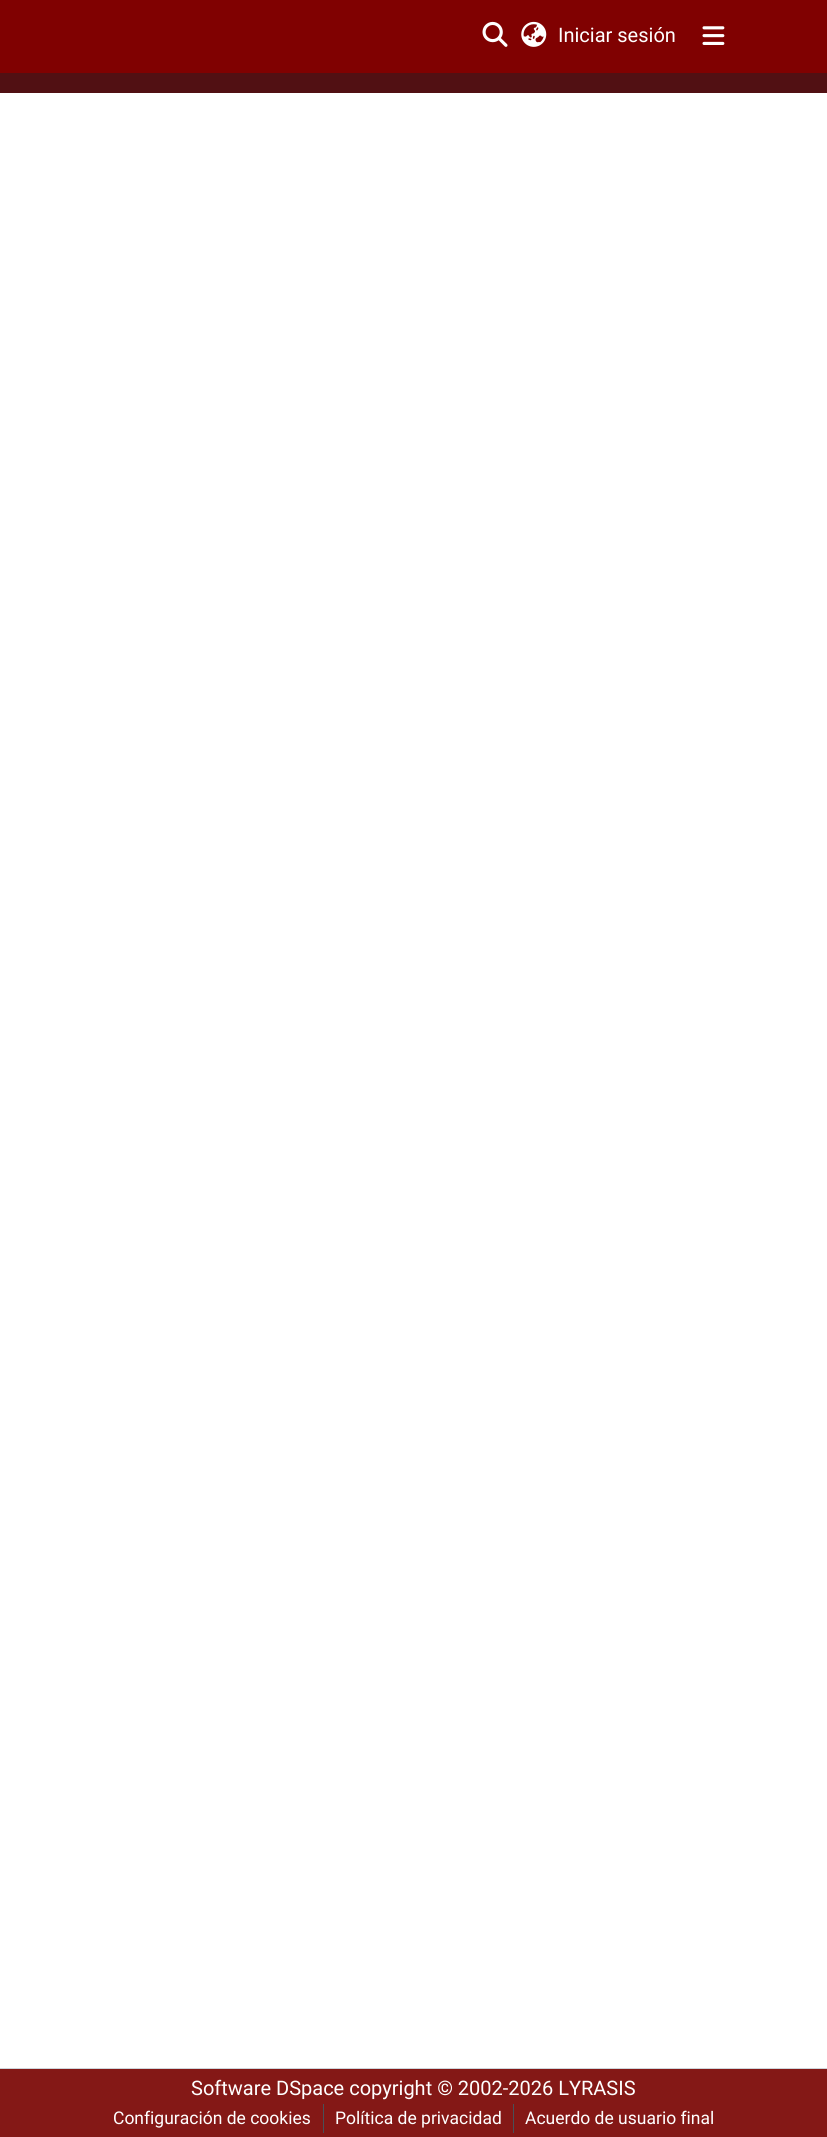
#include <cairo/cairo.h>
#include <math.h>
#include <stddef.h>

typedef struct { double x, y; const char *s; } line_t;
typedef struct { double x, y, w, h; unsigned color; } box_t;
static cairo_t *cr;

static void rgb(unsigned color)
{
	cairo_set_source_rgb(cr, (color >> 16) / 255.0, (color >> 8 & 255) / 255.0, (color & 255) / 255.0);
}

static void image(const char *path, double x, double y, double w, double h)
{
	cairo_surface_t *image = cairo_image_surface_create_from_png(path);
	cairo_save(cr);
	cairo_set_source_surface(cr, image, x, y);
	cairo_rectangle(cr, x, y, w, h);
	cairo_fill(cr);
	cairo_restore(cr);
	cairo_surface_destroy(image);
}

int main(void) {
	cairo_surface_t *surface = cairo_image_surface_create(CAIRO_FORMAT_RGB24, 827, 2137);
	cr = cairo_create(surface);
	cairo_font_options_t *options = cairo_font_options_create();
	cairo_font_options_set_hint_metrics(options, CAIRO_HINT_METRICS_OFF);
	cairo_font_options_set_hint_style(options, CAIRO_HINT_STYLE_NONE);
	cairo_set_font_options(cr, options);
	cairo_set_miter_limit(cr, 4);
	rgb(0xffffff);
	cairo_paint(cr);
	rgb(0x800101);
	cairo_rectangle(cr, 0, 0, 827, 73);
	cairo_fill(cr);
	image("img/1.png", 482, 21, 26, 26);
	image("img/2.png", 521, 21, 26, 26);
	image("img/3.png", 702, 26, 23, 19);
	{
		static const box_t items[] = {
			{0, 73, 827, 20, 0x511013},
			{0, 2069, 827, 68, 0x841816},
			{0, 2068, 827, 1, 0xced4da},
			{323, 2104, 1, 29, 0x495057},
			{513, 2104, 1, 29, 0x495057},
		};
		for (size_t i = 0; i < sizeof items / sizeof *items; i++) {
			rgb(items[i].color);
			cairo_rectangle(cr, items[i].x, items[i].y, items[i].w, items[i].h);
			cairo_fill(cr);
		}
	}
	cairo_select_font_face(cr, "Roboto", CAIRO_FONT_SLANT_NORMAL, CAIRO_FONT_WEIGHT_NORMAL);
	cairo_set_font_size(cr, 20);
	rgb(0xffffff);
	cairo_move_to(cr, 558, 42);
	cairo_show_text(cr, "Iniciar sesión");
	cairo_move_to(cr, 191, 2095);
	cairo_show_text(cr, "Software DSpace copyright © 2002-2026 LYRASIS");
	cairo_set_font_size(cr, 17.5);
	{
		static const line_t items[] = {
			{113, 2124, "Configuración de cookies"},
			{335, 2124, "Política de privacidad"},
			{525, 2124, "Acuerdo de usuario final"},
		};
		for (size_t i = 0; i < sizeof items / sizeof *items; i++) {
			cairo_move_to(cr, items[i].x, items[i].y);
			cairo_show_text(cr, items[i].s);
		}
	}
	cairo_surface_write_to_png(surface, "page.png");
	cairo_font_options_destroy(options);
	cairo_destroy(cr);
	cairo_surface_destroy(surface);
	return 0;
}
